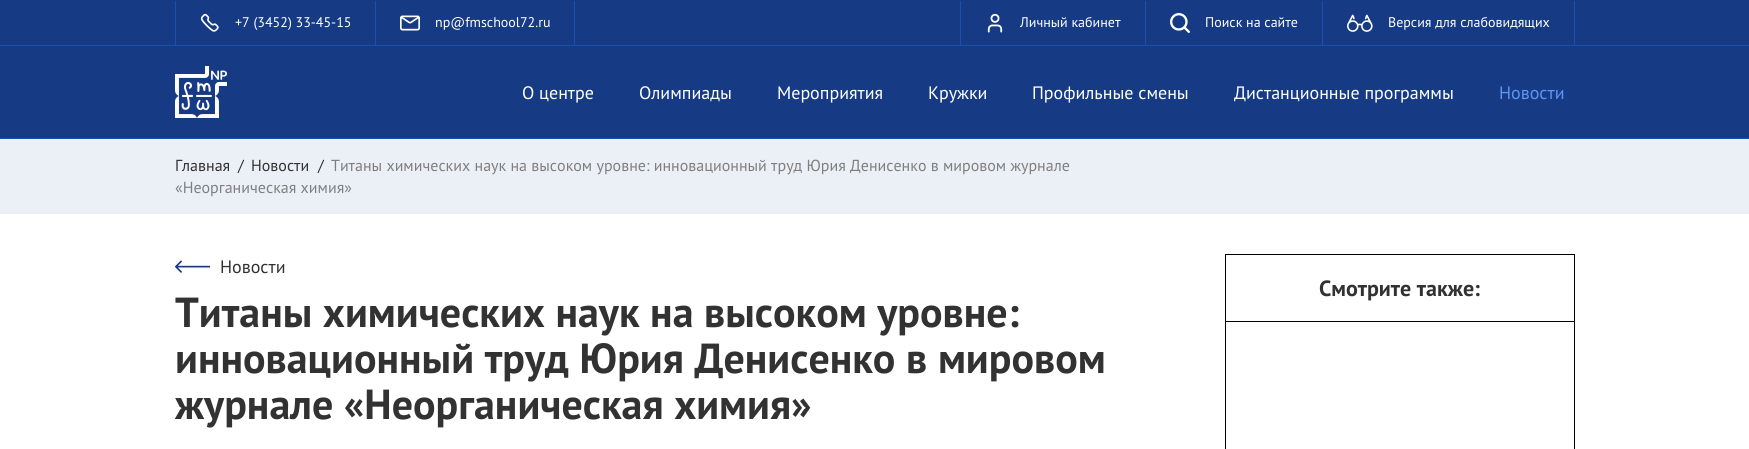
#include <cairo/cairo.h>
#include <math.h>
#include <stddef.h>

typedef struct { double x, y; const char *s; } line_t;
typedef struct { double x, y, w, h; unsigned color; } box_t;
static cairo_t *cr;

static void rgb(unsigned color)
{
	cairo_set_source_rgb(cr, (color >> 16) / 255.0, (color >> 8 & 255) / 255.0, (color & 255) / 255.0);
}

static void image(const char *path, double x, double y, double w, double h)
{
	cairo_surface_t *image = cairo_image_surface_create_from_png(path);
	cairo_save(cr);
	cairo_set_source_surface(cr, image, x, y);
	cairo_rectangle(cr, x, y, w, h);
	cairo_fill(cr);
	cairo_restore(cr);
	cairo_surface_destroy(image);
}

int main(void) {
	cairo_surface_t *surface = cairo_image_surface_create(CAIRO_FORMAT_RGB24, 1749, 449);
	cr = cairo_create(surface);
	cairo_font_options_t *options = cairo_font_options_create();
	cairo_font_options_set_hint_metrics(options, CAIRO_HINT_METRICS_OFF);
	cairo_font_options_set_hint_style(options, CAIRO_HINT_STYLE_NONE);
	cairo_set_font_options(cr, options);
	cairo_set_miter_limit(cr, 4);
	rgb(0xffffff);
	cairo_paint(cr);
	{
		static const box_t items[] = {
			{0, 0, 1749, 45, 0x163b84},
			{0, 45, 1749, 1, 0x1d4fb0},
			{375, 1, 1, 44, 0x1d4fb0},
			{175, 1, 1, 44, 0x1d4fb0},
		};
		for (size_t i = 0; i < sizeof items / sizeof *items; i++) {
			rgb(items[i].color);
			cairo_rectangle(cr, items[i].x, items[i].y, items[i].w, items[i].h);
			cairo_fill(cr);
		}
	}
	image("img/1.png", 200, 13, 19, 19);
	cairo_rectangle(cr, 574, 1, 1, 44);
	cairo_fill(cr);
	image("img/2.png", 400, 15, 20, 16);
	cairo_rectangle(cr, 1145, 1, 1, 44);
	cairo_fill(cr);
	cairo_rectangle(cr, 960, 1, 1, 44);
	cairo_fill(cr);
	image("img/3.png", 987, 13, 16, 20);
	cairo_rectangle(cr, 1322, 1, 1, 44);
	cairo_fill(cr);
	image("img/4.png", 1170, 13, 20, 20);
	cairo_rectangle(cr, 1574, 1, 1, 44);
	cairo_fill(cr);
	image("img/5.png", 1347, 14, 26, 18);
	rgb(0x163b84);
	cairo_rectangle(cr, 0, 46, 1749, 92);
	cairo_fill(cr);
	rgb(0x1d4fb0);
	cairo_rectangle(cr, 0, 138, 1749, 1);
	cairo_fill(cr);
	image("img/6.png", 175, 66, 52, 52);
	rgb(0xebeff6);
	cairo_rectangle(cr, 0, 139, 1749, 75);
	cairo_fill(cr);
	image("img/7.png", 175, 260, 35, 13);
	cairo_rectangle(cr, 1225.5, 254.5, 349, 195);
	rgb(0x000000);
	cairo_set_line_width(cr, 1);
	cairo_stroke(cr);
	cairo_rectangle(cr, 1226, 321, 348, 1);
	cairo_fill(cr);
	cairo_select_font_face(cr, "PT Sans", CAIRO_FONT_SLANT_NORMAL, CAIRO_FONT_WEIGHT_NORMAL);
	cairo_set_font_size(cr, 14);
	rgb(0xffffff);
	{
		static const line_t items[] = {
			{235, 27, "+7 (3452) 33-45-15"},
			{435, 27, "np@fmschool72.ru"},
			{1020, 27, "Личный кабинет"},
			{1205, 27, "Поиск на сайте"},
			{1388, 27, "Версия для слабовидящих"},
		};
		for (size_t i = 0; i < sizeof items / sizeof *items; i++) {
			cairo_move_to(cr, items[i].x, items[i].y);
			cairo_show_text(cr, items[i].s);
		}
	}
	cairo_set_font_size(cr, 18);
	{
		static const line_t items[] = {
			{522, 99, "О центре"},
			{639, 99, "Олимпиады"},
			{777, 99, "Мероприятия"},
			{928, 99, "Кружки"},
			{1032, 99, "Профильные смены"},
			{1234, 99, "Дистанционные программы"},
		};
		for (size_t i = 0; i < sizeof items / sizeof *items; i++) {
			cairo_move_to(cr, items[i].x, items[i].y);
			cairo_show_text(cr, items[i].s);
		}
	}
	rgb(0x6094f0);
	cairo_move_to(cr, 1499, 99);
	cairo_show_text(cr, "Новости");
	cairo_set_font_size(cr, 16);
	rgb(0x323232);
	{
		static const line_t items[] = {
			{175, 171, "Главная"},
			{238, 171, "/"},
			{251, 171, "Новости"},
			{318, 171, "/"},
		};
		for (size_t i = 0; i < sizeof items / sizeof *items; i++) {
			cairo_move_to(cr, items[i].x, items[i].y);
			cairo_show_text(cr, items[i].s);
		}
	}
	rgb(0x7f7f7f);
	cairo_move_to(cr, 331, 171);
	cairo_show_text(cr, "Титаны химических наук на высоком уровне: инновационный труд Юрия Денисенко в мировом журнале");
	cairo_move_to(cr, 175, 193);
	cairo_show_text(cr, "«Неорганическая химия»");
	cairo_set_font_size(cr, 18);
	rgb(0x323232);
	cairo_move_to(cr, 220, 273);
	cairo_show_text(cr, "Новости");
	cairo_select_font_face(cr, "PT Sans", CAIRO_FONT_SLANT_NORMAL, CAIRO_FONT_WEIGHT_BOLD);
	cairo_set_font_size(cr, 42);
	{
		static const line_t items[] = {
			{175, 327, "Титаны химических наук на высоком уровне:"},
			{175, 373, "инновационный труд Юрия Денисенко в мировом"},
			{175, 419, "журнале «Неорганическая химия»"},
		};
		for (size_t i = 0; i < sizeof items / sizeof *items; i++) {
			cairo_move_to(cr, items[i].x, items[i].y);
			cairo_show_text(cr, items[i].s);
		}
	}
	cairo_set_font_size(cr, 22);
	cairo_move_to(cr, 1319, 296);
	cairo_show_text(cr, "Смотрите также:");
	cairo_surface_write_to_png(surface, "page.png");
	cairo_font_options_destroy(options);
	cairo_destroy(cr);
	cairo_surface_destroy(surface);
	return 0;
}
